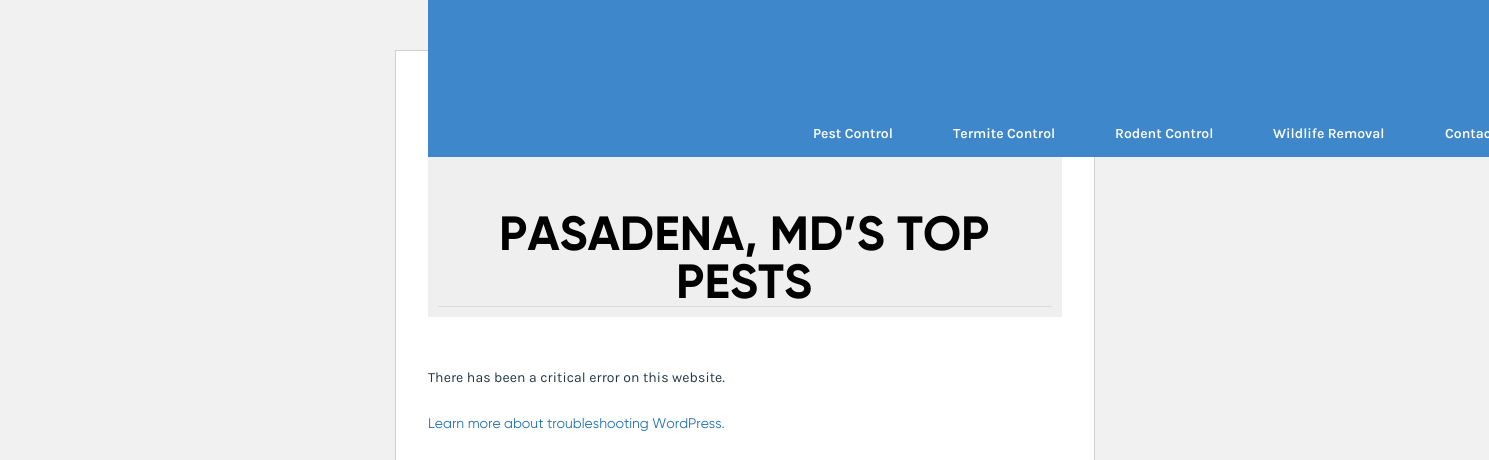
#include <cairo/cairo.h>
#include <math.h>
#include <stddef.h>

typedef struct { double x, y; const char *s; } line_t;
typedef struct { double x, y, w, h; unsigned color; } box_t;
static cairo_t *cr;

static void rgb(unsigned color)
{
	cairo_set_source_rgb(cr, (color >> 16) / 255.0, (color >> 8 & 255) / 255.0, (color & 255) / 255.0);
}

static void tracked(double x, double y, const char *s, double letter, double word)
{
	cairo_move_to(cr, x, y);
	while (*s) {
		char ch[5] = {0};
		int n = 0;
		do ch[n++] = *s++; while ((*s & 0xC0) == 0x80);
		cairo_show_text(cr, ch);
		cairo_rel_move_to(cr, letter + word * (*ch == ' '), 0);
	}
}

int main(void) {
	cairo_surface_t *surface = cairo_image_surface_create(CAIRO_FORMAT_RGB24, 1489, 460);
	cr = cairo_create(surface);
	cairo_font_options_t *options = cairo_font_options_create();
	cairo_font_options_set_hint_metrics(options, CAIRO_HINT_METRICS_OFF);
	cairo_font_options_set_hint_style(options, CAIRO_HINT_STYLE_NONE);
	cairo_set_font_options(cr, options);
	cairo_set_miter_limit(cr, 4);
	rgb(0xf1f1f1);
	cairo_paint(cr);
	rgb(0xffffff);
	cairo_rectangle(cr, 395.5, 50.5, 699, 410);
	cairo_fill_preserve(cr);
	rgb(0xccd0d4);
	cairo_set_line_width(cr, 1);
	cairo_stroke(cr);
	{
		static const box_t items[] = {
			{428, 0, 1061, 157, 0x3e87cb},
			{428, 157, 634, 160, 0xefefef},
			{438, 306, 614, 1, 0xdadada},
		};
		for (size_t i = 0; i < sizeof items / sizeof *items; i++) {
			rgb(items[i].color);
			cairo_rectangle(cr, items[i].x, items[i].y, items[i].w, items[i].h);
			cairo_fill(cr);
		}
	}
	cairo_select_font_face(cr, "Karla SemiBold", CAIRO_FONT_SLANT_NORMAL, CAIRO_FONT_WEIGHT_NORMAL);
	cairo_set_font_size(cr, 14);
	rgb(0xffffff);
	{
		static const line_t items[] = {
			{813, 138, "Pest Control"},
			{953, 138, "Termite Control"},
			{1115, 138, "Rodent Control"},
			{1273, 138, "Wildlife Removal"},
			{1445, 138, "Contac"},
		};
		for (size_t i = 0; i < sizeof items / sizeof *items; i++) {
			cairo_move_to(cr, items[i].x, items[i].y);
			cairo_show_text(cr, items[i].s);
		}
	}
	cairo_select_font_face(cr, "Gilroy", CAIRO_FONT_SLANT_NORMAL, CAIRO_FONT_WEIGHT_BOLD);
	cairo_set_font_size(cr, 48);
	rgb(0x000000);
	tracked(499, 250, "PASADENA, MD’S TOP", 0.1, 0);
	tracked(676, 298, "PESTS", 0.1, 0);
	cairo_select_font_face(cr, "Karla", CAIRO_FONT_SLANT_NORMAL, CAIRO_FONT_WEIGHT_NORMAL);
	cairo_set_font_size(cr, 14);
	rgb(0x223645);
	tracked(428, 382, "There has been a critical error on this website.", 0.1, 0);
	cairo_select_font_face(cr, "Gilroy", CAIRO_FONT_SLANT_NORMAL, CAIRO_FONT_WEIGHT_NORMAL);
	rgb(0x2271b1);
	cairo_move_to(cr, 428, 428);
	cairo_show_text(cr, "Learn more about troubleshooting WordPress.");
	cairo_surface_write_to_png(surface, "page.png");
	cairo_font_options_destroy(options);
	cairo_destroy(cr);
	cairo_surface_destroy(surface);
	return 0;
}
